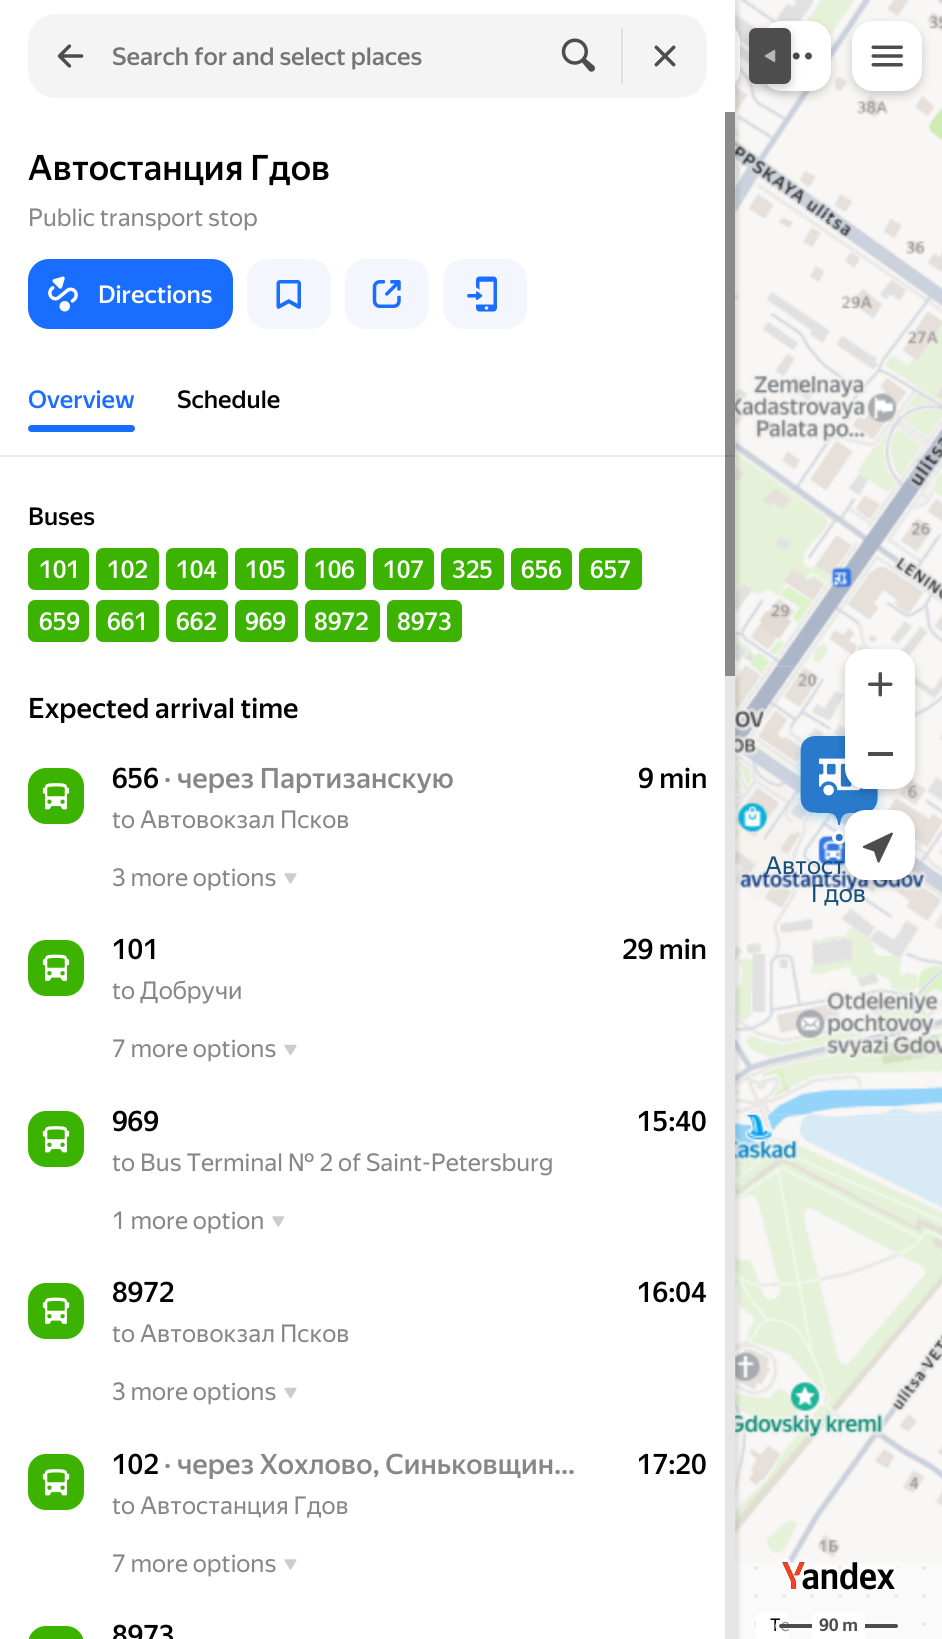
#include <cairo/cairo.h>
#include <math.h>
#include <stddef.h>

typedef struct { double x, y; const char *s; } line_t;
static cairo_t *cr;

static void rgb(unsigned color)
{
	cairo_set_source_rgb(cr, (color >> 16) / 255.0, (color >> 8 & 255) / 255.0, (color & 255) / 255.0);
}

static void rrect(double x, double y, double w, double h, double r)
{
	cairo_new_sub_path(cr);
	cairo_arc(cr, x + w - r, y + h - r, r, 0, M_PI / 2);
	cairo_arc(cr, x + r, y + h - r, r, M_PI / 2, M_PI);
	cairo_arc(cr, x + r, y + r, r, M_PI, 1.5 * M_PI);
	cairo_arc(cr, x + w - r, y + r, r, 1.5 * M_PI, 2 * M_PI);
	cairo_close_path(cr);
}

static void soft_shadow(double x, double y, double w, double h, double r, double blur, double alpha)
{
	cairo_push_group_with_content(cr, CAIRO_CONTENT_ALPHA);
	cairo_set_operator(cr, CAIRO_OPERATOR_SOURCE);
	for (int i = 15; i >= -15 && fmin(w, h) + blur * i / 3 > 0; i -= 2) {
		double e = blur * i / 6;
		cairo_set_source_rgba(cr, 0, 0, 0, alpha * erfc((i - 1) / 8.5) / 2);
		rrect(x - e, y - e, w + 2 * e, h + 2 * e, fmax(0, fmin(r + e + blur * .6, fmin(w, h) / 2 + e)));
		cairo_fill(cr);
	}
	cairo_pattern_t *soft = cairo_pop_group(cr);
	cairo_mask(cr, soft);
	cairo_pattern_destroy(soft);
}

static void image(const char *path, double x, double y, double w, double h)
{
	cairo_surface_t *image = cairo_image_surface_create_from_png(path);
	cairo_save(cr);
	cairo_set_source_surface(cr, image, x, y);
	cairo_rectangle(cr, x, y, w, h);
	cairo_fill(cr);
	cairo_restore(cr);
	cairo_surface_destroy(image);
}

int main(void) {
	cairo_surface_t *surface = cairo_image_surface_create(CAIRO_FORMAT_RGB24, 942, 1639);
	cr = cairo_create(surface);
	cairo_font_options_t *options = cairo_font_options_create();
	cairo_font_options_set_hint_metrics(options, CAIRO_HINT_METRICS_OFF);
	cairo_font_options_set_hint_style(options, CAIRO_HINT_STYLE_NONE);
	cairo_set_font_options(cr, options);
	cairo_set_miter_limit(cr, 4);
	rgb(0xffffff);
	cairo_paint(cr);
	image("img/1.png", 735, 0, 207, 1639);
	image("img/20.png", 735, 0, 207, 219);
	rgb(0x000000);
	soft_shadow(600, 25, 140, 70, 21, 5, 0.2);
	rgb(0xffffff);
	cairo_new_path(cr);
	cairo_move_to(cr, 670, 21);
	cairo_line_to(cr, 719, 21);
	cairo_curve_to(cr, 730.5, 21, 740, 30.5, 740, 42);
	cairo_line_to(cr, 740, 70);
	cairo_curve_to(cr, 740, 81.5, 730.5, 91, 719, 91);
	cairo_line_to(cr, 670, 91);
	cairo_close_path(cr);
	cairo_fill(cr);
	image("img/21.png", 735, 218, 207, 449);
	image("img/22.png", 735, 666, 207, 449);
	image("img/23.png", 735, 1114, 207, 449);
	rgb(0x000000);
	soft_shadow(4, 0, 735, 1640, 0, 2, 0.1);
	soft_shadow(761, 25, 70, 70, 21, 5, 0.2);
	rgb(0xffffff);
	rrect(761, 21, 70, 70, 21);
	cairo_fill(cr);
	image("img/5.png", 792, 52, 20, 8);
	rgb(0x000000);
	soft_shadow(749, 32, 42, 56, 7, 5, 0.2);
	rgb(0xffffff);
	cairo_rectangle(cr, 1, 0, 734, 1639);
	cairo_fill(cr);
	rgb(0xf4f4f4);
	rrect(28, 14, 679, 84, 28);
	cairo_fill(cr);
	image("img/2.png", 57, 44, 27, 24);
	image("img/3.png", 561, 38, 34, 34);
	rgb(0xe0e0e0);
	cairo_rectangle(cr, 621, 28, 2, 56);
	cairo_fill(cr);
	image("img/4.png", 654, 45, 22, 22);
	rgb(0x000000);
	soft_shadow(852, 25, 70, 70, 21, 5, 0.2);
	rgb(0xffffff);
	rrect(852, 21, 70, 70, 21);
	cairo_fill(cr);
	image("img/6.png", 871, 45, 32, 22);
	image("img/24.png", 792, 732, 94, 113);
	image("img/25.png", 819, 758, 42, 38);
	rgb(0x000000);
	soft_shadow(845, 653, 70, 140, 21, 5, 0.2);
	rgb(0xffffff);
	cairo_new_path(cr);
	cairo_move_to(cr, 866, 649);
	cairo_line_to(cr, 894, 649);
	cairo_curve_to(cr, 905.5, 649, 915, 658.5, 915, 670);
	cairo_line_to(cr, 915, 719);
	cairo_line_to(cr, 845, 719);
	cairo_line_to(cr, 845, 670);
	cairo_curve_to(cr, 845, 658.5, 854.5, 649, 866, 649);
	cairo_close_path(cr);
	cairo_fill(cr);
	image("img/7.png", 868, 672, 25, 25);
	cairo_new_path(cr);
	cairo_move_to(cr, 845, 719);
	cairo_line_to(cr, 915, 719);
	cairo_line_to(cr, 915, 768);
	cairo_curve_to(cr, 915, 779.5, 905.5, 789, 894, 789);
	cairo_line_to(cr, 866, 789);
	cairo_curve_to(cr, 854.5, 789, 845, 779.5, 845, 768);
	cairo_close_path(cr);
	cairo_fill(cr);
	rgb(0x4d4d4d);
	cairo_rectangle(cr, 868, 752, 25, 4);
	cairo_fill(cr);
	rgb(0x000000);
	soft_shadow(845, 814, 70, 70, 21, 5, 0.2);
	rgb(0xffffff);
	rrect(845, 810, 70, 70, 21);
	cairo_fill(cr);
	image("img/8.png", 862, 832, 31, 31);
	rgb(0x4d4d4d);
	rrect(749, 28, 42, 56, 7);
	cairo_fill(cr);
	image("img/9.png", 764, 49, 12, 14);
	rgb(0x196dff);
	rrect(28, 259, 205, 70, 21);
	cairo_fill(cr);
	image("img/10.png", 48, 276, 30, 36);
	rgb(0xf3f6fc);
	rrect(247, 259, 84, 70, 21);
	cairo_fill(cr);
	image("img/11.png", 276, 280, 25, 29);
	rrect(345, 259, 84, 70, 21);
	cairo_fill(cr);
	image("img/12.png", 372, 280, 29, 28);
	rrect(443, 259, 84, 70, 21);
	cairo_fill(cr);
	image("img/13.png", 467, 276, 30, 36);
	rgb(0x196dff);
	rrect(28, 425, 107, 7, 3.5);
	cairo_fill(cr);
	rgb(0xebebeb);
	cairo_rectangle(cr, 0, 455, 735, 2);
	cairo_fill(cr);
	rgb(0x3bb300);
	rrect(28, 548, 61, 42, 7);
	cairo_fill(cr);
	rrect(96, 548, 63, 42, 7);
	cairo_fill(cr);
	rrect(166, 548, 62, 42, 7);
	cairo_fill(cr);
	rrect(235, 548, 63, 42, 7);
	cairo_fill(cr);
	rrect(305, 548, 61, 42, 7);
	cairo_fill(cr);
	rrect(373, 548, 61, 42, 7);
	cairo_fill(cr);
	rrect(441, 548, 63, 42, 7);
	cairo_fill(cr);
	rrect(511, 548, 61, 42, 7);
	cairo_fill(cr);
	rrect(579, 548, 63, 42, 7);
	cairo_fill(cr);
	rrect(28, 600, 61, 42, 7);
	cairo_fill(cr);
	rrect(96, 600, 63, 42, 7);
	cairo_fill(cr);
	rrect(166, 600, 62, 42, 7);
	cairo_fill(cr);
	rrect(235, 600, 63, 42, 7);
	cairo_fill(cr);
	rrect(305, 600, 75, 42, 7);
	cairo_fill(cr);
	rrect(387, 600, 75, 42, 7);
	cairo_fill(cr);
	rrect(28, 768, 56, 56, 18);
	cairo_fill(cr);
	image("img/14.png", 42, 783, 28, 27);
	image("img/15.png", 284, 873, 13, 11);
	rrect(28, 940, 56, 56, 18);
	cairo_fill(cr);
	image("img/16.png", 42, 954, 28, 27);
	image("img/17.png", 284, 1044, 13, 12);
	rrect(28, 1111, 56, 56, 18);
	cairo_fill(cr);
	image("img/14.png", 42, 1126, 28, 27);
	image("img/18.png", 272, 1216, 13, 11);
	rrect(28, 1283, 56, 56, 18);
	cairo_fill(cr);
	image("img/16.png", 42, 1297, 28, 27);
	image("img/17.png", 284, 1387, 13, 12);
	rrect(28, 1454, 56, 56, 18);
	cairo_fill(cr);
	image("img/14.png", 42, 1469, 28, 27);
	image("img/15.png", 284, 1559, 13, 11);
	cairo_new_path(cr);
	cairo_move_to(cr, 46, 1626);
	cairo_line_to(cr, 66, 1626);
	cairo_curve_to(cr, 76, 1626, 84, 1634, 84, 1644);
	cairo_line_to(cr, 84, 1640);
	cairo_line_to(cr, 28, 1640);
	cairo_line_to(cr, 28, 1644);
	cairo_curve_to(cr, 28, 1634, 36, 1626, 46, 1626);
	cairo_close_path(cr);
	cairo_fill(cr);
	cairo_set_source_rgba(cr, 0, 0, 0, 0.1);
	cairo_rectangle(cr, 725, 112, 10, 1527);
	cairo_fill(cr);
	cairo_set_source_rgba(cr, 0, 0, 0, 0.4);
	cairo_rectangle(cr, 725, 112, 10, 564);
	cairo_fill(cr);
	image("img/19.png", 779, 1559, 119, 31);
	rgb(0xffffff);
	cairo_new_path(cr);
	cairo_move_to(cr, 763, 1612);
	cairo_line_to(cr, 782, 1612);
	cairo_curve_to(cr, 786, 1612, 789, 1615, 789, 1619);
	cairo_line_to(cr, 789, 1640);
	cairo_line_to(cr, 756, 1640);
	cairo_line_to(cr, 756, 1619);
	cairo_curve_to(cr, 756, 1615, 759, 1612, 763, 1612);
	cairo_close_path(cr);
	cairo_fill(cr);
	cairo_select_font_face(cr, "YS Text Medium", CAIRO_FONT_SLANT_NORMAL, CAIRO_FONT_WEIGHT_NORMAL);
	cairo_set_font_size(cr, 24.5);
	rgb(0x757575);
	cairo_move_to(cr, 112, 65);
	cairo_show_text(cr, "Search for and select places");
	cairo_set_font_size(cr, 35);
	rgb(0x000000);
	cairo_move_to(cr, 28, 180);
	cairo_show_text(cr, "Автостанция Гдов");
	cairo_select_font_face(cr, "YS Text", CAIRO_FONT_SLANT_NORMAL, CAIRO_FONT_WEIGHT_NORMAL);
	cairo_set_font_size(cr, 24.5);
	rgb(0x878787);
	cairo_move_to(cr, 28, 226);
	cairo_show_text(cr, "Public transport stop");
	cairo_select_font_face(cr, "YS Text Medium", CAIRO_FONT_SLANT_NORMAL, CAIRO_FONT_WEIGHT_NORMAL);
	rgb(0xffffff);
	cairo_move_to(cr, 98, 303);
	cairo_show_text(cr, "Directions");
	rgb(0x196dff);
	cairo_move_to(cr, 28, 408);
	cairo_show_text(cr, "Overview");
	rgb(0x000000);
	cairo_move_to(cr, 177, 408);
	cairo_show_text(cr, "Schedule");
	cairo_move_to(cr, 28, 525);
	cairo_show_text(cr, "Buses");
	rgb(0xffffff);
	{
		static const line_t items[] = {
			{39, 578, "101"},
			{107, 578, "102"},
			{176, 578, "104"},
			{245, 578, "105"},
			{314, 578, "106"},
			{383, 578, "107"},
			{452, 578, "325"},
			{521, 578, "656"},
			{590, 578, "657"},
			{39, 630, "659"},
			{107, 630, "661"},
			{176, 630, "662"},
			{245, 630, "969"},
			{314, 630, "8972"},
			{397, 630, "8973"},
		};
		for (size_t i = 0; i < sizeof items / sizeof *items; i++) {
			cairo_move_to(cr, items[i].x, items[i].y);
			cairo_show_text(cr, items[i].s);
		}
	}
	cairo_set_font_size(cr, 28);
	rgb(0x000000);
	cairo_move_to(cr, 28, 718);
	cairo_show_text(cr, "Expected arrival time");
	cairo_move_to(cr, 112, 788);
	cairo_show_text(cr, "656");
	rgb(0x878787);
	cairo_move_to(cr, 164, 788);
	cairo_show_text(cr, "· через Партизанскую");
	cairo_select_font_face(cr, "YS Text", CAIRO_FONT_SLANT_NORMAL, CAIRO_FONT_WEIGHT_NORMAL);
	cairo_set_font_size(cr, 24.5);
	cairo_move_to(cr, 112, 828);
	cairo_show_text(cr, "to Автовокзал Псков");
	cairo_select_font_face(cr, "YS Text Medium", CAIRO_FONT_SLANT_NORMAL, CAIRO_FONT_WEIGHT_NORMAL);
	cairo_set_font_size(cr, 28);
	rgb(0x000000);
	cairo_move_to(cr, 638, 788);
	cairo_show_text(cr, "9 min");
	cairo_select_font_face(cr, "YS Text", CAIRO_FONT_SLANT_NORMAL, CAIRO_FONT_WEIGHT_NORMAL);
	cairo_set_font_size(cr, 24.5);
	rgb(0x878787);
	cairo_move_to(cr, 112, 886);
	cairo_show_text(cr, "3 more options");
	cairo_select_font_face(cr, "YS Text Medium", CAIRO_FONT_SLANT_NORMAL, CAIRO_FONT_WEIGHT_NORMAL);
	cairo_set_font_size(cr, 28);
	rgb(0x000000);
	cairo_move_to(cr, 112, 959);
	cairo_show_text(cr, "101");
	cairo_select_font_face(cr, "YS Text", CAIRO_FONT_SLANT_NORMAL, CAIRO_FONT_WEIGHT_NORMAL);
	cairo_set_font_size(cr, 24.5);
	rgb(0x878787);
	cairo_move_to(cr, 112, 999);
	cairo_show_text(cr, "to Добручи");
	cairo_select_font_face(cr, "YS Text Medium", CAIRO_FONT_SLANT_NORMAL, CAIRO_FONT_WEIGHT_NORMAL);
	cairo_set_font_size(cr, 28);
	rgb(0x000000);
	cairo_move_to(cr, 622, 959);
	cairo_show_text(cr, "29 min");
	cairo_select_font_face(cr, "YS Text", CAIRO_FONT_SLANT_NORMAL, CAIRO_FONT_WEIGHT_NORMAL);
	cairo_set_font_size(cr, 24.5);
	rgb(0x878787);
	cairo_move_to(cr, 112, 1057);
	cairo_show_text(cr, "7 more options");
	cairo_select_font_face(cr, "YS Text Medium", CAIRO_FONT_SLANT_NORMAL, CAIRO_FONT_WEIGHT_NORMAL);
	cairo_set_font_size(cr, 28);
	rgb(0x000000);
	cairo_move_to(cr, 112, 1131);
	cairo_show_text(cr, "969");
	cairo_select_font_face(cr, "YS Text", CAIRO_FONT_SLANT_NORMAL, CAIRO_FONT_WEIGHT_NORMAL);
	cairo_set_font_size(cr, 24.5);
	rgb(0x878787);
	cairo_move_to(cr, 112, 1171);
	cairo_show_text(cr, "to Bus Terminal № 2 of Saint-Petersburg");
	cairo_select_font_face(cr, "YS Text Medium", CAIRO_FONT_SLANT_NORMAL, CAIRO_FONT_WEIGHT_NORMAL);
	cairo_set_font_size(cr, 28);
	rgb(0x000000);
	cairo_move_to(cr, 637, 1131);
	cairo_show_text(cr, "15:40");
	cairo_select_font_face(cr, "YS Text", CAIRO_FONT_SLANT_NORMAL, CAIRO_FONT_WEIGHT_NORMAL);
	cairo_set_font_size(cr, 24.5);
	rgb(0x878787);
	cairo_move_to(cr, 112, 1229);
	cairo_show_text(cr, "1 more option");
	cairo_select_font_face(cr, "YS Text Medium", CAIRO_FONT_SLANT_NORMAL, CAIRO_FONT_WEIGHT_NORMAL);
	cairo_set_font_size(cr, 28);
	rgb(0x000000);
	cairo_move_to(cr, 112, 1302);
	cairo_show_text(cr, "8972");
	cairo_select_font_face(cr, "YS Text", CAIRO_FONT_SLANT_NORMAL, CAIRO_FONT_WEIGHT_NORMAL);
	cairo_set_font_size(cr, 24.5);
	rgb(0x878787);
	cairo_move_to(cr, 112, 1342);
	cairo_show_text(cr, "to Автовокзал Псков");
	cairo_select_font_face(cr, "YS Text Medium", CAIRO_FONT_SLANT_NORMAL, CAIRO_FONT_WEIGHT_NORMAL);
	cairo_set_font_size(cr, 28);
	rgb(0x000000);
	cairo_move_to(cr, 637, 1302);
	cairo_show_text(cr, "16:04");
	cairo_select_font_face(cr, "YS Text", CAIRO_FONT_SLANT_NORMAL, CAIRO_FONT_WEIGHT_NORMAL);
	cairo_set_font_size(cr, 24.5);
	rgb(0x878787);
	cairo_move_to(cr, 112, 1400);
	cairo_show_text(cr, "3 more options");
	cairo_select_font_face(cr, "YS Text Medium", CAIRO_FONT_SLANT_NORMAL, CAIRO_FONT_WEIGHT_NORMAL);
	cairo_set_font_size(cr, 28);
	rgb(0x000000);
	cairo_move_to(cr, 112, 1474);
	cairo_show_text(cr, "102");
	rgb(0x878787);
	cairo_move_to(cr, 164, 1474);
	cairo_show_text(cr, "· через Хохлово, Синьковщин…");
	cairo_select_font_face(cr, "YS Text", CAIRO_FONT_SLANT_NORMAL, CAIRO_FONT_WEIGHT_NORMAL);
	cairo_set_font_size(cr, 24.5);
	cairo_move_to(cr, 112, 1514);
	cairo_show_text(cr, "to Автостанция Гдов");
	cairo_select_font_face(cr, "YS Text Medium", CAIRO_FONT_SLANT_NORMAL, CAIRO_FONT_WEIGHT_NORMAL);
	cairo_set_font_size(cr, 28);
	rgb(0x000000);
	cairo_move_to(cr, 637, 1474);
	cairo_show_text(cr, "17:20");
	cairo_select_font_face(cr, "YS Text", CAIRO_FONT_SLANT_NORMAL, CAIRO_FONT_WEIGHT_NORMAL);
	cairo_set_font_size(cr, 24.5);
	rgb(0x878787);
	cairo_move_to(cr, 112, 1572);
	cairo_show_text(cr, "7 more options");
	cairo_select_font_face(cr, "YS Text Medium", CAIRO_FONT_SLANT_NORMAL, CAIRO_FONT_WEIGHT_NORMAL);
	cairo_set_font_size(cr, 28);
	rgb(0x000000);
	cairo_move_to(cr, 112, 1645);
	cairo_show_text(cr, "8973");
	cairo_select_font_face(cr, "YS Text", CAIRO_FONT_SLANT_NORMAL, CAIRO_FONT_WEIGHT_NORMAL);
	cairo_set_font_size(cr, 17.5);
	cairo_move_to(cr, 770, 1631);
	cairo_show_text(cr, "Te");
	cairo_set_source_rgba(cr, 1, 1, 1, 0.6);
	rrect(775, 1621, 126, 10, 5);
	cairo_fill(cr);
	rgb(0x4d4d4d);
	rrect(779, 1624, 119, 4, 2);
	cairo_fill(cr);
	rgb(0xffffff);
	cairo_new_path(cr);
	cairo_move_to(cr, 819, 1612);
	cairo_line_to(cr, 858, 1612);
	cairo_curve_to(cr, 862, 1612, 865, 1615, 865, 1619);
	cairo_line_to(cr, 865, 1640);
	cairo_line_to(cr, 812, 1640);
	cairo_line_to(cr, 812, 1619);
	cairo_curve_to(cr, 812, 1615, 815, 1612, 819, 1612);
	cairo_close_path(cr);
	cairo_fill(cr);
	cairo_select_font_face(cr, "YS Text", CAIRO_FONT_SLANT_NORMAL, CAIRO_FONT_WEIGHT_BOLD);
	rgb(0x4d4d4d);
	cairo_move_to(cr, 819, 1631);
	cairo_show_text(cr, "90 m");
	cairo_select_font_face(cr, "YS Text", CAIRO_FONT_SLANT_NORMAL, CAIRO_FONT_WEIGHT_NORMAL);
	cairo_set_font_size(cr, 24.5);
	rgb(0x175078);
	cairo_move_to(cr, 765, 874);
	cairo_show_text(cr, "Автост");
	cairo_move_to(cr, 811, 902);
	cairo_show_text(cr, "Гдов");
	cairo_surface_write_to_png(surface, "page.png");
	cairo_font_options_destroy(options);
	cairo_destroy(cr);
	cairo_surface_destroy(surface);
	return 0;
}
